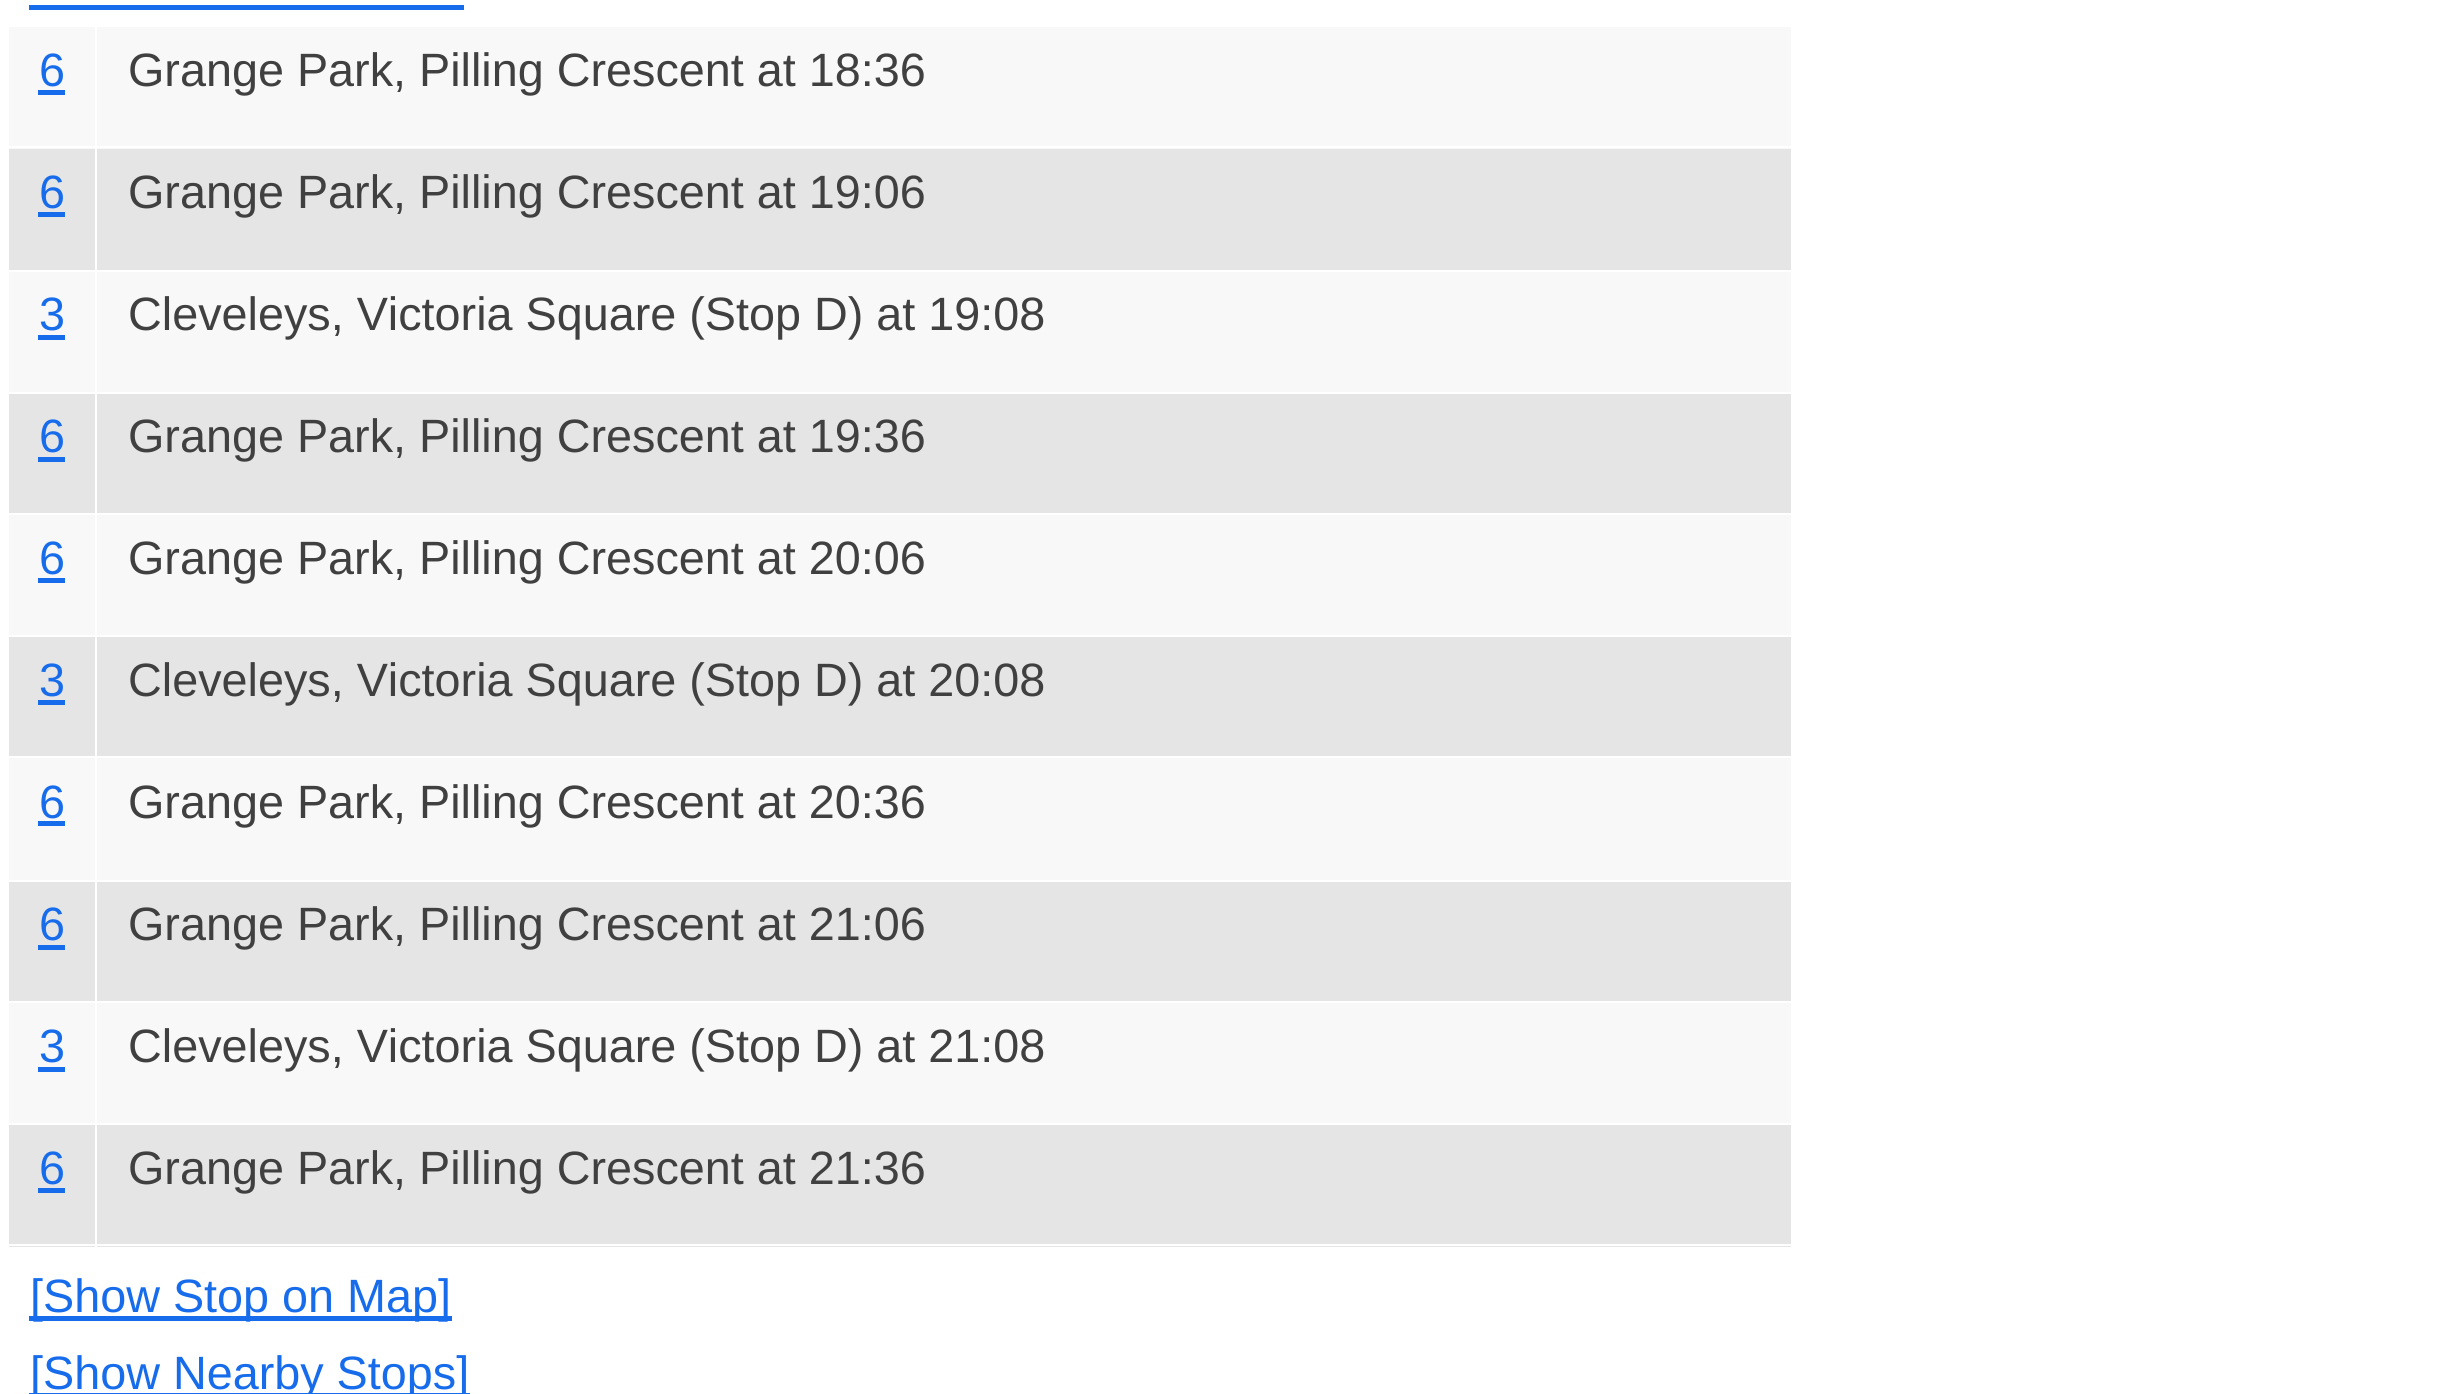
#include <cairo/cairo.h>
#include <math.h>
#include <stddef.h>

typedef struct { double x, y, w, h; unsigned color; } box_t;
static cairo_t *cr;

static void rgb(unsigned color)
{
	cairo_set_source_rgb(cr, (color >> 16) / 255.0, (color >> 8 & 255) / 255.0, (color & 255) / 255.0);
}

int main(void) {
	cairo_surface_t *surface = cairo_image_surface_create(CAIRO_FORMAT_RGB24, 2460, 1394);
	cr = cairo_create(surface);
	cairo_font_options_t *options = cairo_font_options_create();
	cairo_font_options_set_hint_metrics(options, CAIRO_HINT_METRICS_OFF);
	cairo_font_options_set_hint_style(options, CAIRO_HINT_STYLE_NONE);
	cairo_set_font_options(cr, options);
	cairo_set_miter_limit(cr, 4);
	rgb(0xffffff);
	cairo_paint(cr);
	{
		static const box_t items[] = {
			{29, 5, 435, 5, 0x176cec},
			{9, 27, 1782, 122, 0xf8f8f8},
			{38, 90, 27, 5, 0x176cec},
			{95, 146, 1698, 2, 0xffffff},
			{9, 149, 1782, 121, 0xe5e5e5},
			{9, 272, 1782, 120, 0xf8f8f8},
			{9, 394, 1782, 119, 0xe5e5e5},
			{9, 515, 1782, 120, 0xf8f8f8},
			{9, 637, 1782, 119, 0xe5e5e5},
			{9, 758, 1782, 122, 0xf8f8f8},
			{9, 882, 1782, 119, 0xe5e5e5},
			{9, 1003, 1782, 120, 0xf8f8f8},
			{9, 1125, 1782, 122, 0xe5e5e5},
			{95, 1244, 1698, 2, 0xffffff},
			{95, 270, 2, 977, 0xffffff},
			{95, 146, 2, 126, 0xffffff},
			{7, 146, 90, 2, 0xffffff},
			{95, 25, 2, 124, 0xffffff},
			{38, 212, 27, 5, 0x176cec},
			{38, 335, 27, 5, 0x176cec},
			{38, 457, 27, 5, 0x176cec},
			{38, 578, 27, 5, 0x176cec},
			{38, 700, 27, 5, 0x176cec},
			{38, 821, 27, 5, 0x176cec},
			{38, 945, 27, 5, 0x176cec},
			{38, 1067, 27, 5, 0x176cec},
			{7, 1244, 90, 2, 0xffffff},
			{38, 1188, 27, 5, 0x176cec},
			{29, 1316, 423, 5, 0x176cec},
			{29, 1393, 441, 1, 0x176cec},
		};
		for (size_t i = 0; i < sizeof items / sizeof *items; i++) {
			rgb(items[i].color);
			cairo_rectangle(cr, items[i].x, items[i].y, items[i].w, items[i].h);
			cairo_fill(cr);
		}
	}
	cairo_select_font_face(cr, "Liberation Sans", CAIRO_FONT_SLANT_NORMAL, CAIRO_FONT_WEIGHT_NORMAL);
	cairo_set_font_size(cr, 46.75);
	cairo_move_to(cr, 39, 86);
	cairo_show_text(cr, "6");
	rgb(0x404040);
	cairo_move_to(cr, 128, 86);
	cairo_show_text(cr, "Grange Park, Pilling Crescent at 18:36");
	rgb(0x176cec);
	cairo_move_to(cr, 39, 208);
	cairo_show_text(cr, "6");
	rgb(0x404040);
	cairo_move_to(cr, 128, 208);
	cairo_show_text(cr, "Grange Park, Pilling Crescent at 19:06");
	rgb(0x176cec);
	cairo_move_to(cr, 39, 330);
	cairo_show_text(cr, "3");
	rgb(0x404040);
	cairo_move_to(cr, 128, 330);
	cairo_show_text(cr, "Cleveleys, Victoria Square (Stop D) at 19:08");
	rgb(0x176cec);
	cairo_move_to(cr, 39, 452);
	cairo_show_text(cr, "6");
	rgb(0x404040);
	cairo_move_to(cr, 128, 452);
	cairo_show_text(cr, "Grange Park, Pilling Crescent at 19:36");
	rgb(0x176cec);
	cairo_move_to(cr, 39, 574);
	cairo_show_text(cr, "6");
	rgb(0x404040);
	cairo_move_to(cr, 128, 574);
	cairo_show_text(cr, "Grange Park, Pilling Crescent at 20:06");
	rgb(0x176cec);
	cairo_move_to(cr, 39, 696);
	cairo_show_text(cr, "3");
	rgb(0x404040);
	cairo_move_to(cr, 128, 696);
	cairo_show_text(cr, "Cleveleys, Victoria Square (Stop D) at 20:08");
	rgb(0x176cec);
	cairo_move_to(cr, 39, 818);
	cairo_show_text(cr, "6");
	rgb(0x404040);
	cairo_move_to(cr, 128, 818);
	cairo_show_text(cr, "Grange Park, Pilling Crescent at 20:36");
	rgb(0x176cec);
	cairo_move_to(cr, 39, 940);
	cairo_show_text(cr, "6");
	rgb(0x404040);
	cairo_move_to(cr, 128, 940);
	cairo_show_text(cr, "Grange Park, Pilling Crescent at 21:06");
	rgb(0x176cec);
	cairo_move_to(cr, 39, 1062);
	cairo_show_text(cr, "3");
	rgb(0x404040);
	cairo_move_to(cr, 128, 1062);
	cairo_show_text(cr, "Cleveleys, Victoria Square (Stop D) at 21:08");
	rgb(0x176cec);
	cairo_move_to(cr, 39, 1184);
	cairo_show_text(cr, "6");
	rgb(0x404040);
	cairo_move_to(cr, 128, 1184);
	cairo_show_text(cr, "Grange Park, Pilling Crescent at 21:36");
	rgb(0x176cec);
	cairo_move_to(cr, 30, 1312);
	cairo_show_text(cr, "[Show Stop on Map]");
	cairo_move_to(cr, 30, 1389);
	cairo_show_text(cr, "[Show Nearby Stops]");
	cairo_surface_write_to_png(surface, "page.png");
	cairo_font_options_destroy(options);
	cairo_destroy(cr);
	cairo_surface_destroy(surface);
	return 0;
}
